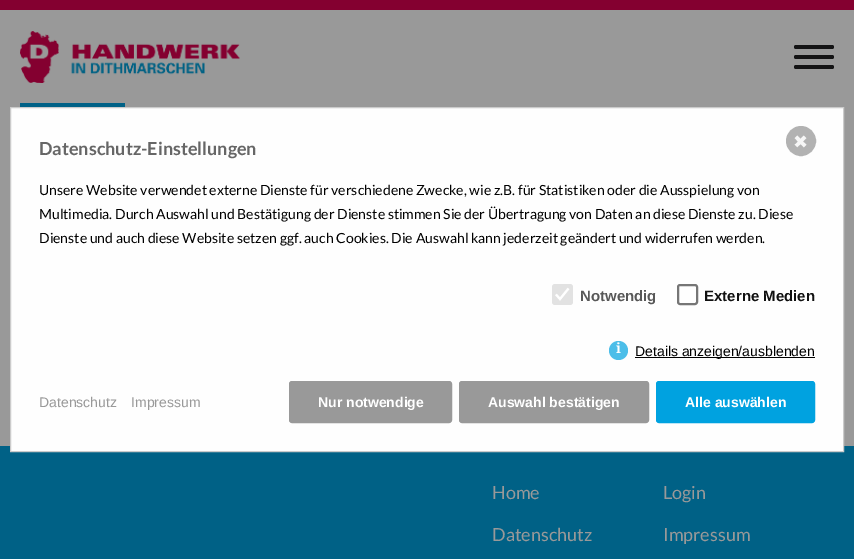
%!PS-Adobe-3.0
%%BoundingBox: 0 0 854 559
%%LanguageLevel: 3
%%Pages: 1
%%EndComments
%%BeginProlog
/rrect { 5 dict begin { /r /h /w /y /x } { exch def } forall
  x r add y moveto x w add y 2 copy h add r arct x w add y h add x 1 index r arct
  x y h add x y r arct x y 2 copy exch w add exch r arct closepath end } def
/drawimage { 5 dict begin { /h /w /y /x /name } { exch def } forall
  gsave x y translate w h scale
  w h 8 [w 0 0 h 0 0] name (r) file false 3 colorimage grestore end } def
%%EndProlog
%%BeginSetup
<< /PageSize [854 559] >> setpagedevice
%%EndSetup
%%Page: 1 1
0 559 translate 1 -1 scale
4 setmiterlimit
0.6 setgray
0 0 854 559 rectfill
0.518 0 0.188 setrgbcolor
0 0 854 10 rectfill
(images/1.raw) 20 31 220 52 drawimage
0.078 0.078 0.082 setrgbcolor
794 55 40 4 2 rrect fill
794 45 40 4 2 rrect fill
794 65 40 4 2 rrect fill
0 0.38 0.525 setrgbcolor
20 103 105 4 rectfill
0 446 854 113 rectfill
0.996 setgray
newpath 10.5 107.5 moveto 843.5 107.5 lineto 843.5 451.5 lineto 10.5 451.5 lineto closepath gsave fill grestore
0.796 setgray
stroke
0.698 setgray
newpath 801 141 14 0 360 arc closepath gsave fill grestore
2 setlinewidth
stroke
0.886 setgray
552 284 21 21 3 rrect fill
1 setgray
2.1 setlinewidth
newpath 556 294.5 moveto 560 299 lineto 568.5 288.5 lineto stroke
0.463 setgray
2 setlinewidth
678 285 19 19 2 rrect stroke
0.298 0.745 0.914 setrgbcolor
newpath 618.5 350.5 9.5 0 360 arc closepath fill
0 setgray
635 357 180 1 rectfill
0.6 setgray
289.5 381.5 162 41 2.5 rrect gsave fill grestore
1 setlinewidth
stroke
459.5 381.5 189 41 2.5 rrect gsave fill grestore
stroke
0 0.635 0.878 setrgbcolor
656.5 381.5 158 41 2.5 rrect gsave fill grestore
stroke
/DejaVuSans-Regular [18 0 0 -18 0 0] selectfont
0.965 setgray
793 148 moveto (✖) show
/Lato-Bold [18 0 0 -18 0 0] selectfont
0.4 setgray
39 155 moveto (Datenschutz-Einstellungen) show
/Lato-Regular [14 0 0 -14 0 0] selectfont
0 setgray
39 195 moveto (Unsere Website verwendet externe Dienste für verschiedene Zwecke, wie z.B. für Statistiken oder die Ausspielung von) show
39 219 moveto (Multimedia. Durch Auswahl und Bestätigung der Dienste stimmen Sie der Übertragung von Daten an diese Dienste zu. Diese) show
39 243 moveto (Dienste und auch diese Website setzen ggf. auch Cookies. Die Auswahl kann jederzeit geändert und widerrufen werden.) show
/LiberationSans-Bold [15 0 0 -15 0 0] selectfont
0.345 setgray
580 301 moveto (Notwendig) show
0.067 setgray
704 301 moveto (Externe Medien) show
/NotoSerif-Bold [14 0 0 -14 0 0] selectfont
1 setgray
616 353 moveto (i) show
/LiberationSans-Regular [14 0 0 -14 0 0] selectfont
0 setgray
635 356 moveto (Details anzeigen/ausblenden) show
0.6 setgray
39 407 moveto (Datenschutz) show
131 407 moveto (Impressum) show
/LiberationSans-Bold [14 0 0 -14 0 0] selectfont
1 setgray
318 407 moveto (Nur notwendige) show
488 407 moveto (Auswahl bestätigen) show
685 407 moveto (Alle auswählen) show
/Lato-Regular [18 0 0 -18 0 0] selectfont
0.6 setgray
492 499 moveto (Home) show
663 499 moveto (Login) show
492 541 moveto (Datenschutz) show
663 541 moveto (Impressum) show
showpage
%%EOF
